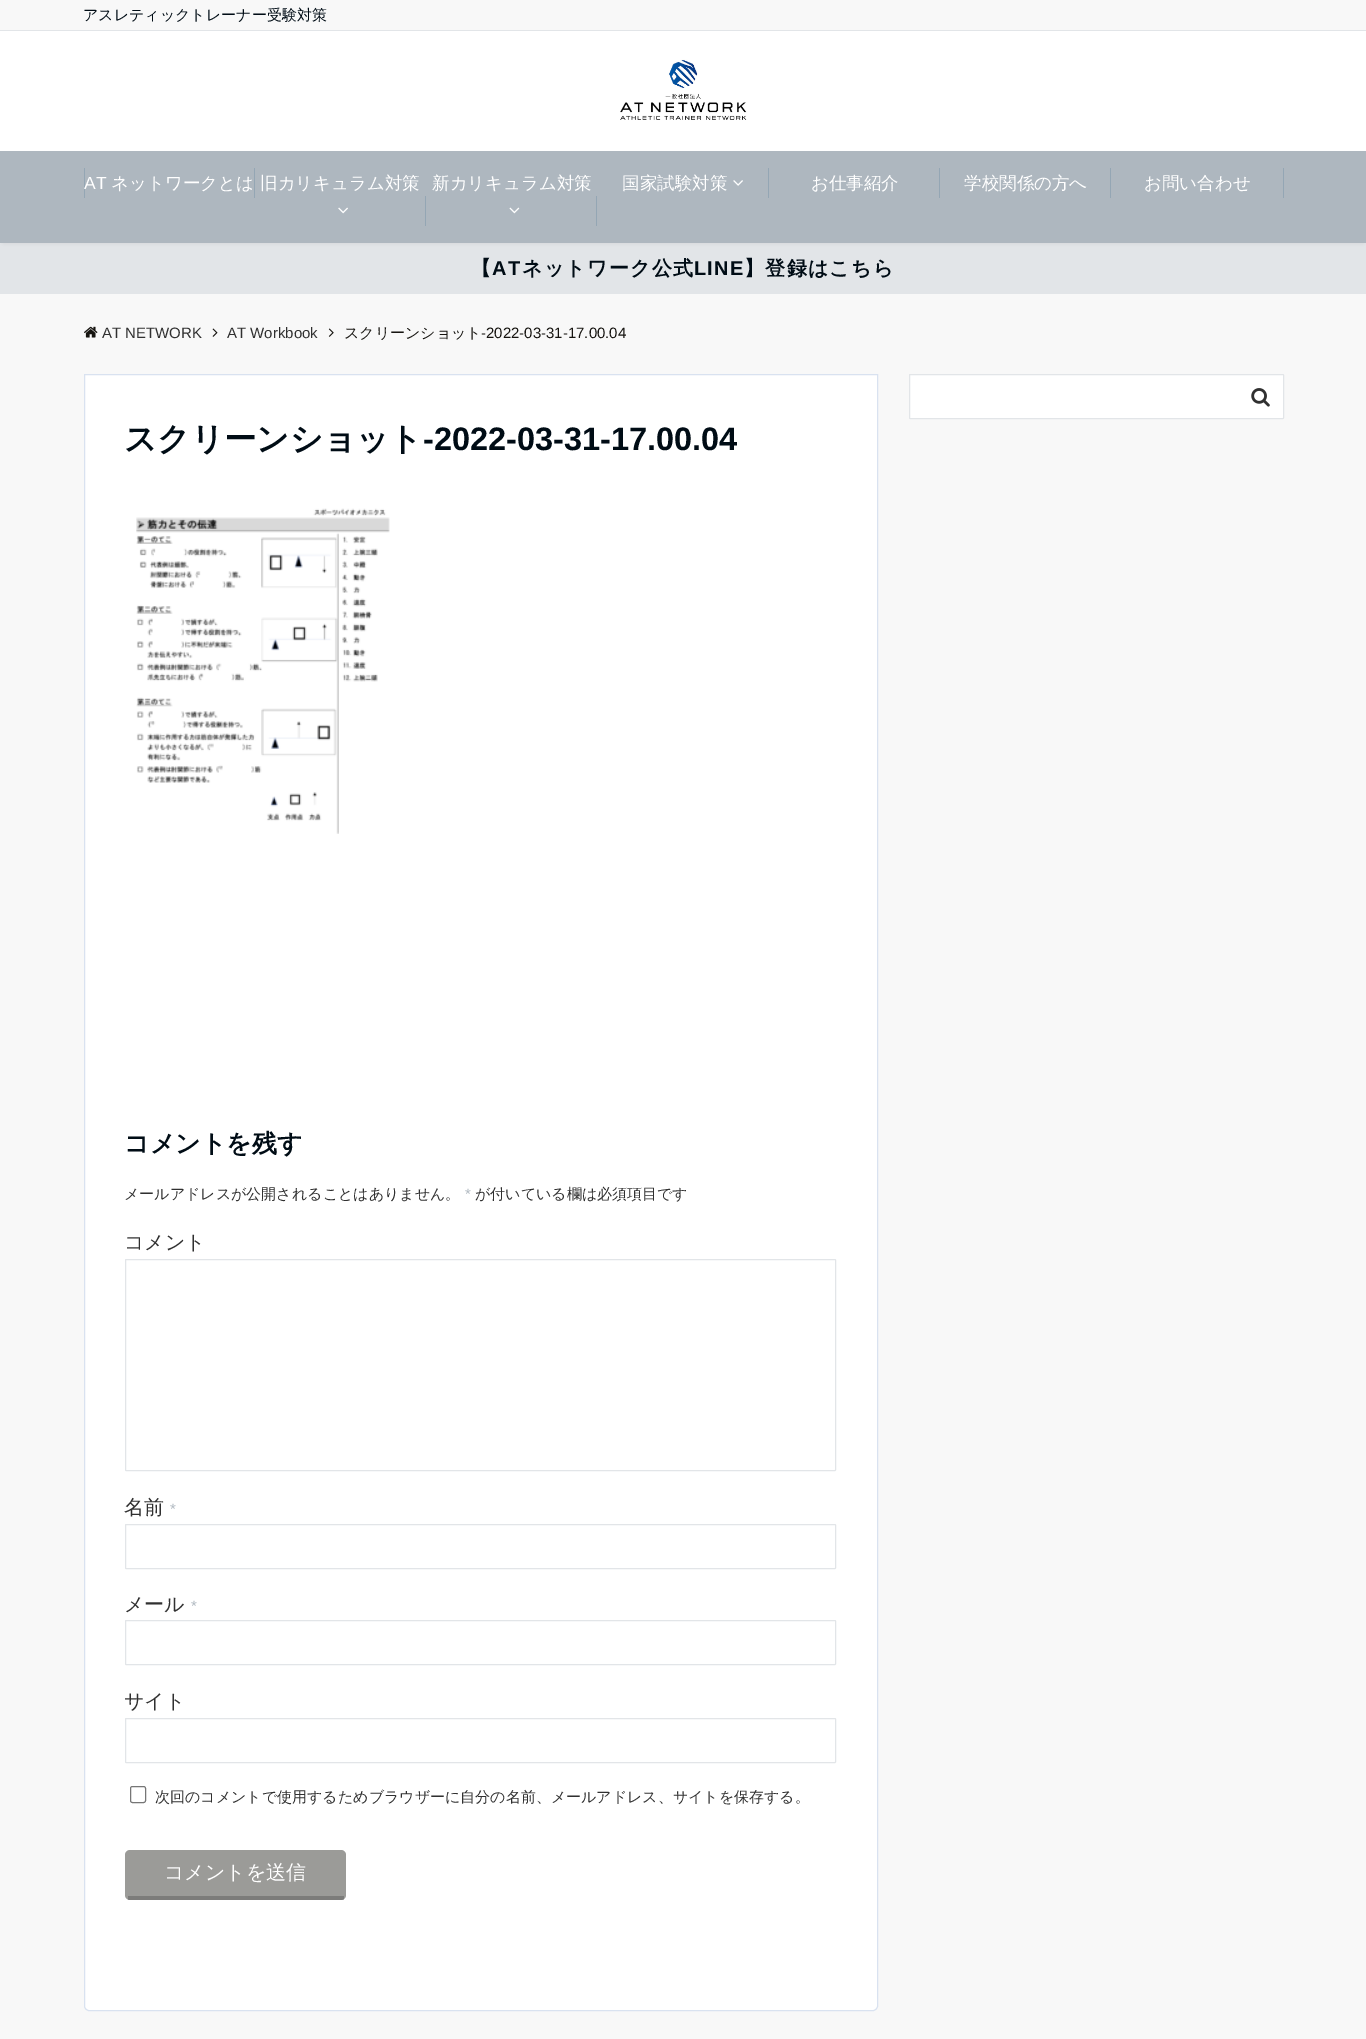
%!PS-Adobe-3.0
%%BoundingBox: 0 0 1366 2039
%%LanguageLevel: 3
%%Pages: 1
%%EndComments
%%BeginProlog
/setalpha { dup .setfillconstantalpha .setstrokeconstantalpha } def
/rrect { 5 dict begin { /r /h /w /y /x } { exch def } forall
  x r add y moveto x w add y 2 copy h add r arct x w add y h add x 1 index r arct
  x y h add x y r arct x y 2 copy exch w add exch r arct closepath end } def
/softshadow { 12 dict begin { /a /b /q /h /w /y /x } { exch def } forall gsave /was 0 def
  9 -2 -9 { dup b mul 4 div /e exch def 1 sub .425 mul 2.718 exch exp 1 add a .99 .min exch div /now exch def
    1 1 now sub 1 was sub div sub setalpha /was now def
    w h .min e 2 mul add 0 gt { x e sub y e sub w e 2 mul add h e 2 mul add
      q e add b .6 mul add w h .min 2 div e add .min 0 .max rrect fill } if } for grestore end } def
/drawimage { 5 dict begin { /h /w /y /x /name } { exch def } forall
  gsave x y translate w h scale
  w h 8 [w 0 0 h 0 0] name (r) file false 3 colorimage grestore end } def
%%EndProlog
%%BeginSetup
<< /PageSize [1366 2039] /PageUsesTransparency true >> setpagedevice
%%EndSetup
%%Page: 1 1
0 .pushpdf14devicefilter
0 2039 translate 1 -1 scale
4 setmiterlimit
0.973 setgray
0 0 1366 2039 rectfill
0.886 0.898 0.91 setrgbcolor
0 30 1366 1 rectfill
1 setgray
0 31 1366 120 rectfill
(images/1.raw) 620 59 127 61 drawimage
0.886 0.898 0.91 setrgbcolor
0 243 1366 51 rectfill
0 setgray
4 158 1359 83 0 2.5 0.2 softshadow
0.682 0.718 0.749 setrgbcolor
0 151 1366 92 rectfill
0.58 0.651 0.706 setrgbcolor
84 168 1 30 rectfill
254 168 1 30 rectfill
(images/2.raw) 338 207 10 7 drawimage
425 196 1 30 rectfill
(images/3.raw) 509 207 11 7 drawimage
596 196 1 30 rectfill
(images/4.raw) 733 180 10 6 drawimage
768 168 1 30 rectfill
939 168 1 30 rectfill
1110 168 1 30 rectfill
1283 168 1 30 rectfill
(images/5.raw) 84 326 14 12 drawimage
(images/6.raw) 212 328 6 9 drawimage
(images/7.raw) 328 328 6 9 drawimage
1 setgray
909.5 374.5 374 44 0.5 rrect gsave fill grestore
0.886 0.898 0.91 setrgbcolor
stroke
(images/8.raw) 1251 388 19 19 drawimage
1 setgray
newpath 84.5 374.5 moveto 877.5 374.5 lineto 877.5 2006 lineto 877.5 2008.5 875.5 2010.5 873 2010.5 curveto 89 2010.5 lineto 86.5 2010.5 84.5 2008.5 84.5 2006 curveto closepath gsave fill grestore
0.851 0.886 0.941 setrgbcolor
stroke
(images/9.raw) 136 508 254 326 drawimage
0.886 0.898 0.91 setrgbcolor
125.5 1259.5 710 211 0.5 rrect stroke
125.5 1524.5 710 44 0.5 rrect stroke
125.5 1620.5 710 44 0.5 rrect stroke
125.5 1718.5 710 44 0.5 rrect stroke
0.463 setgray
130.5 1786.5 15 16 2 rrect stroke
0.608 0.608 0.596 setrgbcolor
125 1850 221 50 5 rrect fill
0.2 setalpha
0 setgray
128 1896 216 4 rectfill
/WenQuanYiZenHei-Medium [15 0 0 -15 0 0] selectfont
1 setalpha
0 0.047 0.082 setrgbcolor
83 20 moveto (アスレティックトレーナー受験対策) show
/LiberationSans-Regular [17.5 0 0 -17.5 0 0] selectfont
1 setgray
84 189 moveto (AT) show
/WenQuanYiZenHei-Medium [17.5 0 0 -17.5 0 0] selectfont
111 189 moveto (ネットワークとは) show
260 189 moveto (旧カリキュラム対策) show
432 189 moveto (新カリキュラム対策) show
622 189 moveto (国家試験対策) show
811 189 moveto (お仕事紹介) show
964 189 moveto (学校関係の方へ) show
1144 189 moveto (お問い合わせ) show
/WenQuanYiZenHei-Bold [20 0 0 -20 0 0] selectfont
0 0.047 0.082 setrgbcolor
471 275 moveto 1.25 0 (【) ashow
/LiberationSans-Bold [20 0 0 -20 0 0] selectfont
492 275 moveto 1.25 0 (AT) ashow
/WenQuanYiZenHei-Bold [20 0 0 -20 0 0] selectfont
522 275 moveto 1.25 0 (ネットワーク公式) ashow
/LiberationSans-Bold [20 0 0 -20 0 0] selectfont
694 275 moveto 1.25 0 (LINE) ashow
/WenQuanYiZenHei-Bold [20 0 0 -20 0 0] selectfont
744 275 moveto 1.25 0 (】登録はこちら) ashow
/LiberationSans-Regular [15 0 0 -15 0 0] selectfont
0.188 setgray
102 338 moveto (AT NETWORK) show
227 338 moveto (AT Workbook) show
/WenQuanYiZenHei-Medium [15 0 0 -15 0 0] selectfont
0.086 0.078 0.063 setrgbcolor
344 338 moveto (スクリーンショット) show
/LiberationSans-Regular [15 0 0 -15 0 0] selectfont
481 338 moveto (-2022-03-31-17.00.04) show
/WenQuanYiZenHei-Bold [32.5 0 0 -32.5 0 0] selectfont
0 0.047 0.082 setrgbcolor
124 450 moveto (スクリーンショット) show
/LiberationSans-Bold [32.5 0 0 -32.5 0 0] selectfont
423 450 moveto (-2022-03-31-17.00.04) show
/WenQuanYiZenHei-Bold [25 0 0 -25 0 0] selectfont
124 1152 moveto (コメントを残す) show
/WenQuanYiZenHei-Medium [15 0 0 -15 0 0] selectfont
0.188 setgray
124 1199 moveto (メールアドレスが公開されることはありません。) show
/LiberationSans-Regular [15 0 0 -15 0 0] selectfont
0.682 0.718 0.749 setrgbcolor
465 1199 moveto (*) show
/WenQuanYiZenHei-Medium [15 0 0 -15 0 0] selectfont
0.188 setgray
475 1199 moveto (が付いている欄は必須項目です) show
/WenQuanYiZenHei-Medium [20 0 0 -20 0 0] selectfont
124 1249 moveto (コメント) show
124 1514 moveto (名前) show
/LiberationSans-Regular [15 0 0 -15 0 0] selectfont
0.682 0.718 0.749 setrgbcolor
170 1514 moveto (*) show
/WenQuanYiZenHei-Medium [20 0 0 -20 0 0] selectfont
0.188 setgray
124 1611 moveto (メール) show
/LiberationSans-Regular [15 0 0 -15 0 0] selectfont
0.682 0.718 0.749 setrgbcolor
191 1611 moveto (*) show
/WenQuanYiZenHei-Medium [20 0 0 -20 0 0] selectfont
0.188 setgray
124 1708 moveto (サイト) show
/WenQuanYiZenHei-Medium [15 0 0 -15 0 0] selectfont
155 1802 moveto (次回のコメントで使用するためブラウザーに自分の名前、メールアドレス、サイトを保存する。) show
/WenQuanYiZenHei-Medium [20 0 0 -20 0 0] selectfont
1 setgray
164 1879 moveto (コメントを送信) show
.poppdf14devicefilter showpage
%%EOF
